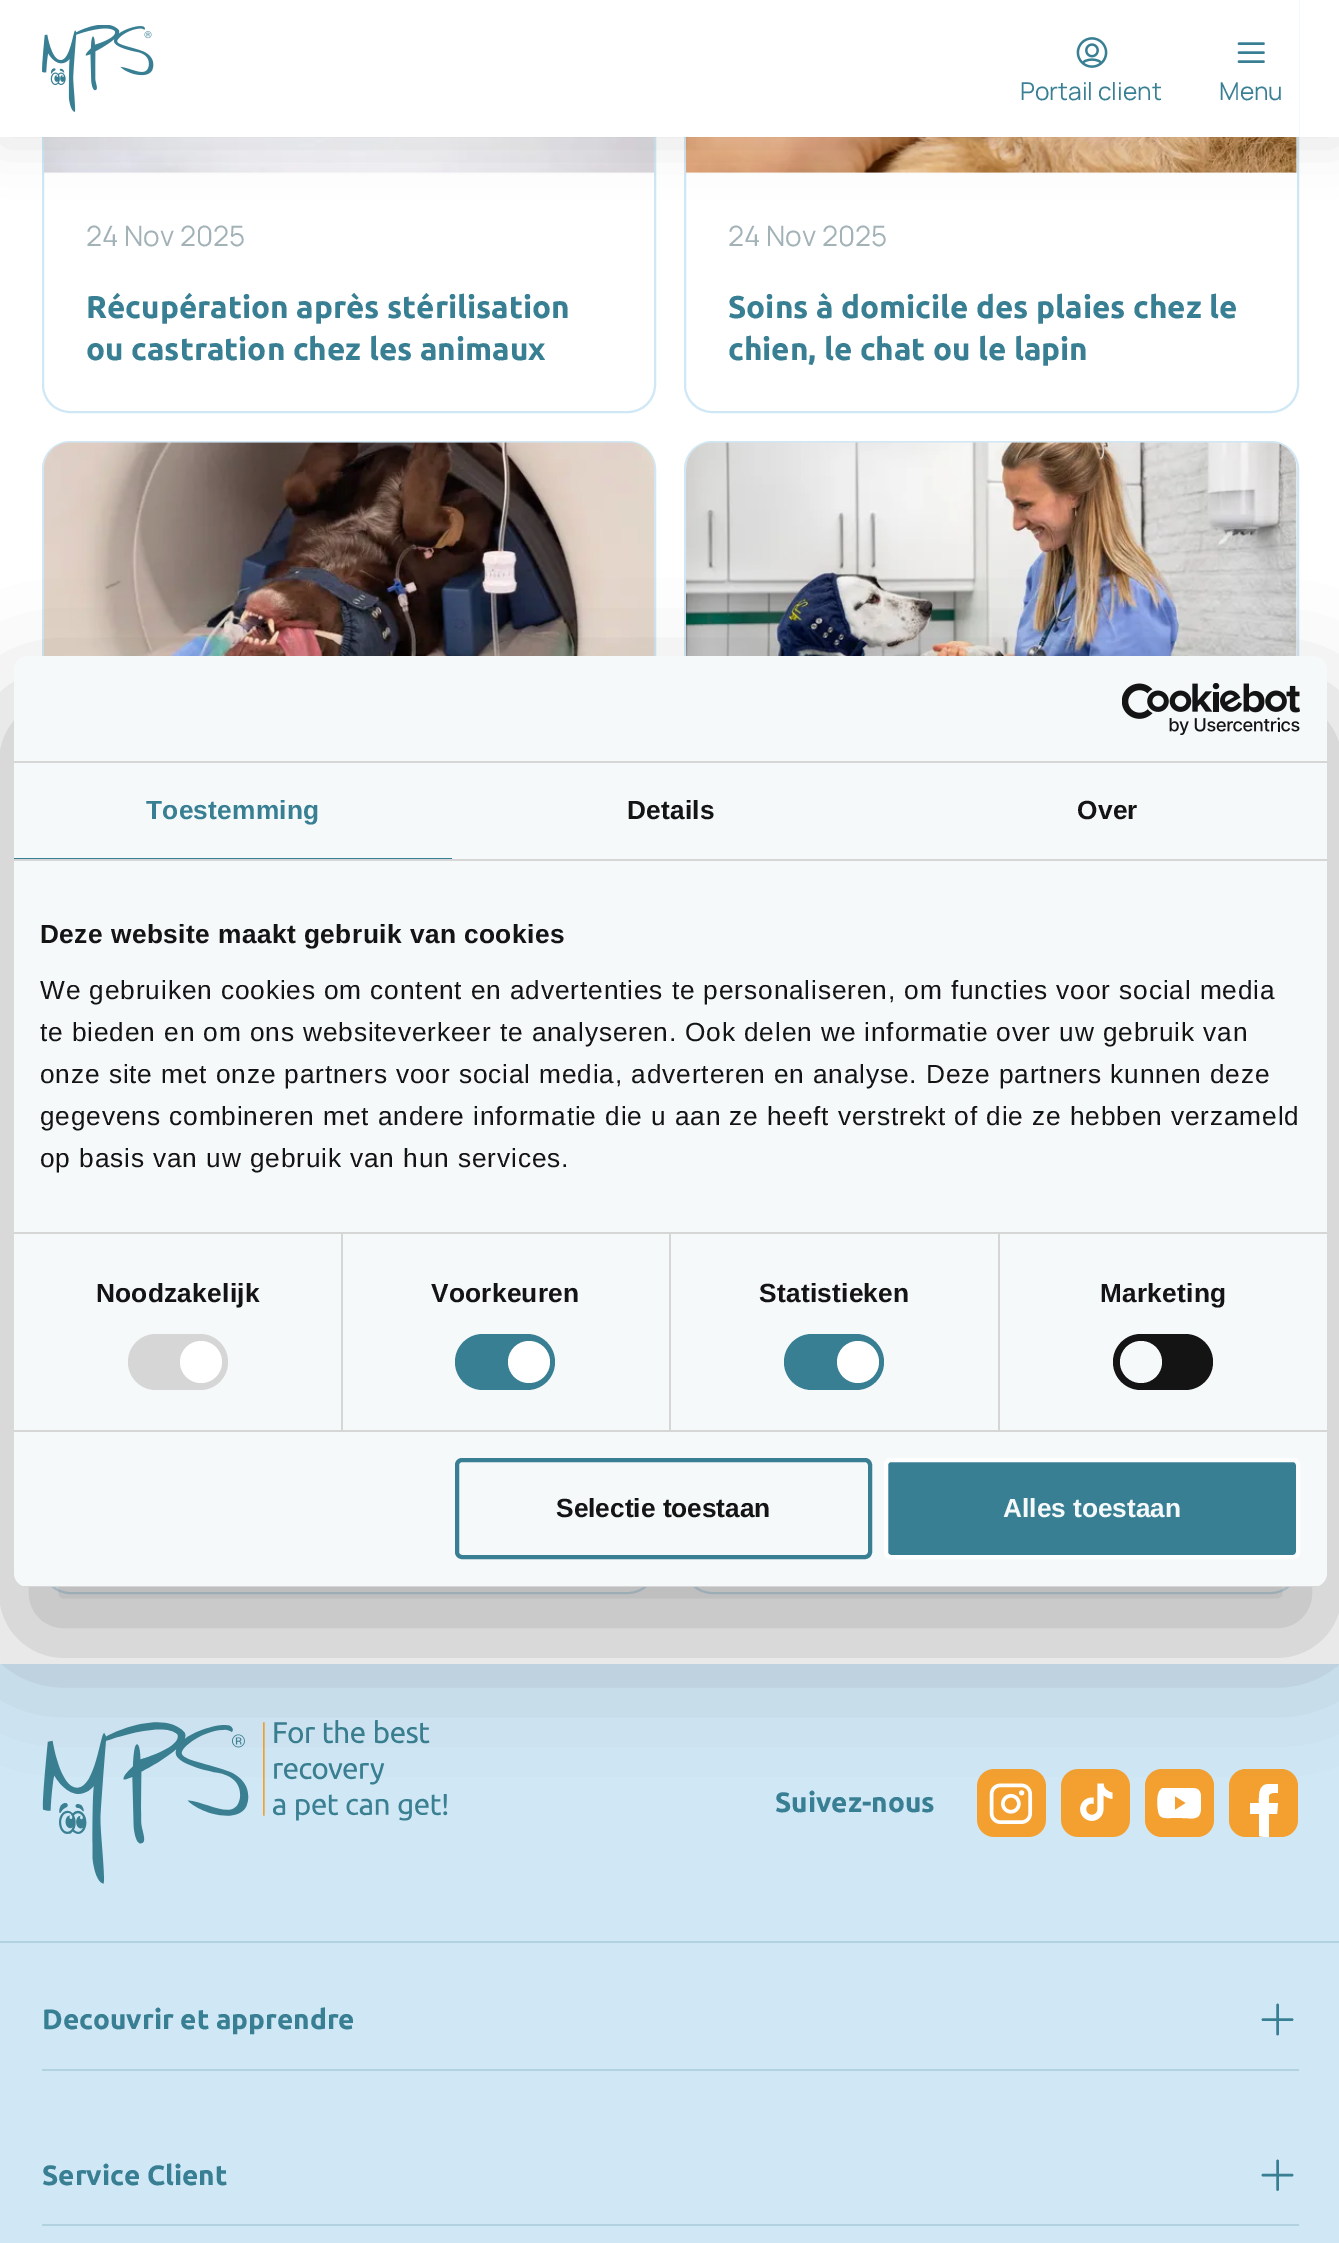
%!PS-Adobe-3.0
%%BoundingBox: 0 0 1339 2243
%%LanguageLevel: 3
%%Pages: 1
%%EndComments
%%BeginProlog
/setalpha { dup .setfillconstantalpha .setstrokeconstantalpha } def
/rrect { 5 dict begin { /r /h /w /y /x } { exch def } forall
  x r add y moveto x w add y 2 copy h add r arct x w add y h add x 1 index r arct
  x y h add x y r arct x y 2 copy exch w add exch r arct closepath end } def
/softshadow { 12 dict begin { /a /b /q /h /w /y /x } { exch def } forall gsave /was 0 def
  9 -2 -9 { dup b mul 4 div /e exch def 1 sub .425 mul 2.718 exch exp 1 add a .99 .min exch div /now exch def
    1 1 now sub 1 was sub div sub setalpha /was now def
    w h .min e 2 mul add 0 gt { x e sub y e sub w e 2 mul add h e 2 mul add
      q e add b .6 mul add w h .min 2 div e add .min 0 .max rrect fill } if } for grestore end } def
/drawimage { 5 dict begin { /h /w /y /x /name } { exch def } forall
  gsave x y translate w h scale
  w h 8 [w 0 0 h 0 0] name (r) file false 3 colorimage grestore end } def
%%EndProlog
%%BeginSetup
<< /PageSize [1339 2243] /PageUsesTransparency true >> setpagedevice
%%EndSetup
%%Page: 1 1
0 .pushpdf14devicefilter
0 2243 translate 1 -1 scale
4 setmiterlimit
1 setgray
0 0 1339 2243 rectfill
0.816 0.906 0.961 setrgbcolor
2 setlinewidth
43 -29 612 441 27 rrect stroke
685 -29 613 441 27 rrect stroke
1 setgray
42 0 1257 137 rectfill
(images/3.raw) 44 137 611 36 drawimage
(images/4.raw) 686 137 611 36 drawimage
gsave
newpath 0 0 moveto 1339 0 lineto 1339 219 lineto 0 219 lineto closepath 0 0 moveto 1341 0 lineto 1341 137 lineto 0 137 lineto closepath eoclip newpath
0 setgray
0 7 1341 137 0 24.5 0.1 softshadow
grestore
(images/1.raw) 42 25 112 87 drawimage
(images/2.raw) 1076 37 32 31 drawimage
0.224 0.498 0.58 setrgbcolor
2.5 setlinewidth
1 setlinecap
1 setlinejoin
newpath 1239 43.5 moveto 1263.5 43.5 lineto 1239 52.5 moveto 1263.5 52.5 lineto 1239 61.5 moveto 1263.5 61.5 lineto stroke
0.816 0.906 0.961 setrgbcolor
2 setlinewidth
0 setlinecap
0 setlinejoin
43 442 612 598 27 rrect stroke
(images/5.raw) 44 442 611 214 drawimage
685 442 613 598 27 rrect stroke
(images/6.raw) 686 442 611 214 drawimage
43 1070 612 523 27 rrect stroke
685 1070 613 523 27 rrect stroke
0 1664 1339 579 rectfill
(images/7.raw) 42 1720 406 164 drawimage
(images/8.raw) 977 1769 69 68 drawimage
(images/9.raw) 1061 1769 69 68 drawimage
0.957 0.627 0.192 setrgbcolor
1145 1769 69 68 17 rrect fill
1 setgray
newpath 1201 1796 moveto 1200 1788 1196 1788 1189 1788 curveto 1163 1788 lineto 1156 1790 1157 1805 1158 1810 curveto 1159 1819 1164 1818 1171 1818 curveto 1182 1818 lineto 1192 1818 1200 1821 1201 1809 curveto closepath 1175 1810 moveto 1175 1796 lineto 1186 1803 lineto closepath fill
0.957 0.627 0.192 setrgbcolor
1229 1769 69 68 17 rrect fill
1 setgray
newpath 1269 1796 moveto 1269 1803 lineto 1278 1803 lineto 1277 1814 lineto 1269 1814 lineto 1269 1837 lineto 1266 1837 1262 1837 1259 1836 curveto 1259 1814 lineto 1250 1814 lineto 1250 1803 lineto 1259 1803 lineto 1259 1796 1258 1784 1269 1784 curveto 1278 1784 lineto 1278 1793 lineto 1276 1793 1269 1792 1269 1796 curveto closepath fill
0.698 0.824 0.886 setrgbcolor
0 1941 1339 2 rectfill
42 2069 1257 2 rectfill
0.224 0.498 0.58 setrgbcolor
2.6 setlinewidth
1 setlinecap
1 setlinejoin
newpath 1263 2019.5 moveto 1292 2019.5 lineto 1277.5 2005 moveto 1277.5 2034 lineto stroke
0.698 0.824 0.886 setrgbcolor
42 2224 1257 2 rectfill
0.224 0.498 0.58 setrgbcolor
newpath 1263 2175 moveto 1292 2175 lineto 1277.5 2161 moveto 1277.5 2189.5 lineto stroke
0 setgray
14 712 1313 931 14 59.5 0.3 softshadow
0.961 0.976 0.98 setrgbcolor
14 656 1313 931 14 rrect fill
0.839 setgray
14 761 1313 2 rectfill
(images/10.raw) 1122 683 178 52 drawimage
14 859 1313 2 rectfill
0.224 0.498 0.58 setrgbcolor
14 858 438 1 rectfill
0.839 setgray
14 1232 1313 2 rectfill
14 1430 1313 2 rectfill
341 1234 2 196 rectfill
128 1334 100 56 28 rrect fill
1 setgray
newpath 201 1362 21 0 360 arc closepath fill
0.839 setgray
669 1234 2 196 rectfill
0.224 0.498 0.58 setrgbcolor
455 1334 100 56 28 rrect fill
1 setgray
newpath 529 1362 21 0 360 arc closepath fill
0.839 setgray
998 1234 2 196 rectfill
0.224 0.498 0.58 setrgbcolor
784 1334 100 56 28 rrect fill
1 setgray
newpath 858 1362 21 0 360 arc closepath fill
0.078 setgray
1113 1334 100 56 28 rrect fill
0.961 0.976 0.98 setrgbcolor
newpath 1141 1362 21 0 360 arc closepath fill
gsave
14 656 1313 931 14 rrect clip newpath
0.839 setgray
23 1586 1295 1 rectfill
grestore
0.224 0.498 0.58 setrgbcolor
4 setlinewidth
0 setlinecap
0 setlinejoin
457 1460 413 97 5 rrect stroke
886 1460 412 97 5 rrect gsave fill grestore
1 setgray
stroke
/Manrope-ExtraLight [24.5 0 0 -24.5 0 0] selectfont
0.224 0.498 0.58 setrgbcolor
1020 100 moveto (Portail client) show
1219 100 moveto (Menu) show
/Manrope-ExtraLight [28 0 0 -28 0 0] selectfont
0.635 0.698 0.718 setrgbcolor
86 246 moveto (24 Nov 2025) show
/Ubuntu-Bold [31.5 0 0 -31.5 0 0] selectfont
0.224 0.498 0.58 setrgbcolor
86 318 moveto (Récupération après stérilisation) show
86 360 moveto (ou castration chez les animaux) show
/Manrope-ExtraLight [28 0 0 -28 0 0] selectfont
0.635 0.698 0.718 setrgbcolor
728 246 moveto (24 Nov 2025) show
/Ubuntu-Bold [31.5 0 0 -31.5 0 0] selectfont
0.224 0.498 0.58 setrgbcolor
728 318 moveto (Soins à domicile des plaies chez le) show
728 360 moveto (chien, le chat ou le lapin) show
/Ubuntu-Bold [28 0 0 -28 0 0] selectfont
775 1812 moveto (Suivez-nous) show
42 2029 moveto (Decouvrir et apprendre) show
42 2185 moveto (Service Client) show
/LiberationSans-Bold [26.25 0 0 -26.25 0 0] selectfont
146 819 moveto 0.25 0 (Toestemming) ashow
0.078 setgray
627 819 moveto 0.25 0 (Details) ashow
1077 819 moveto 0.25 0 (Over) ashow
40 943 moveto 0.45 0 (Deze website maakt gebruik van cookies) ashow
/LiberationSans-Regular [26.25 0 0 -26.25 0 0] selectfont
40 999 moveto 0.88 0 (We gebruiken cookies om content en advertenties te personaliseren, om functies voor social media) ashow
40 1041 moveto 0.88 0 (te bieden en om ons websiteverkeer te analyseren. Ook delen we informatie over uw gebruik van) ashow
40 1083 moveto 0.88 0 (onze site met onze partners voor social media, adverteren en analyse. Deze partners kunnen deze) ashow
40 1125 moveto 0.88 0 (gegevens combineren met andere informatie die u aan ze heeft verstrekt of die ze hebben verzameld) ashow
40 1167 moveto 0.88 0 (op basis van uw gebruik van hun services.) ashow
/LiberationSans-Bold [26.25 0 0 -26.25 0 0] selectfont
96 1302 moveto 0.25 0 (Noodzakelijk) ashow
431 1302 moveto 0.25 0 (Voorkeuren) ashow
759 1302 moveto 0.25 0 (Statistieken) ashow
1100 1302 moveto 0.25 0 (Marketing) ashow
556 1517 moveto (Selectie toestaan) show
0.961 0.976 0.98 setrgbcolor
1003 1517 moveto (Alles toestaan) show
.poppdf14devicefilter showpage
%%EOF
